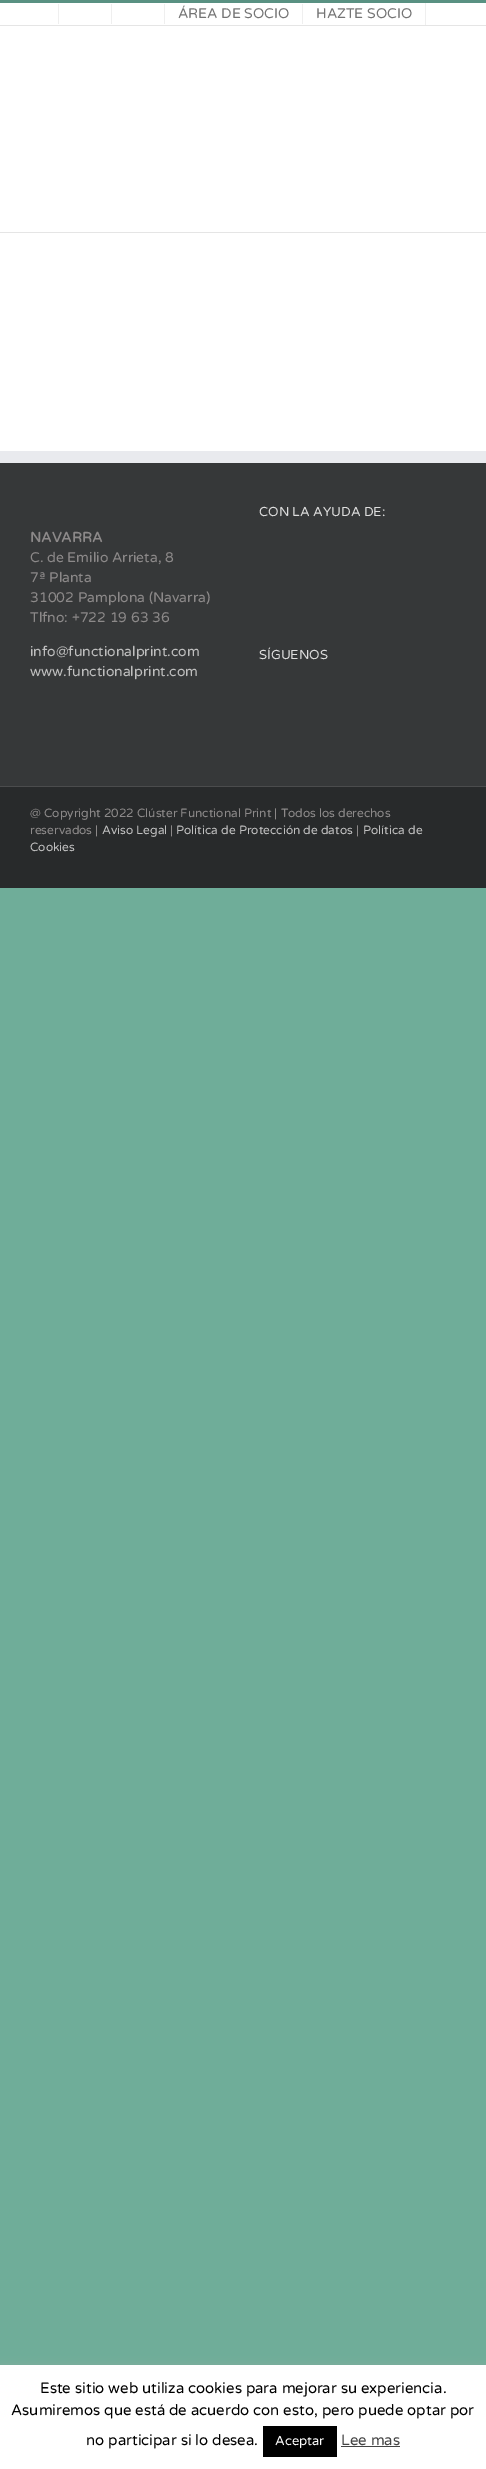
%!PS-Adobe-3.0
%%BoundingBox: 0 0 486 2469
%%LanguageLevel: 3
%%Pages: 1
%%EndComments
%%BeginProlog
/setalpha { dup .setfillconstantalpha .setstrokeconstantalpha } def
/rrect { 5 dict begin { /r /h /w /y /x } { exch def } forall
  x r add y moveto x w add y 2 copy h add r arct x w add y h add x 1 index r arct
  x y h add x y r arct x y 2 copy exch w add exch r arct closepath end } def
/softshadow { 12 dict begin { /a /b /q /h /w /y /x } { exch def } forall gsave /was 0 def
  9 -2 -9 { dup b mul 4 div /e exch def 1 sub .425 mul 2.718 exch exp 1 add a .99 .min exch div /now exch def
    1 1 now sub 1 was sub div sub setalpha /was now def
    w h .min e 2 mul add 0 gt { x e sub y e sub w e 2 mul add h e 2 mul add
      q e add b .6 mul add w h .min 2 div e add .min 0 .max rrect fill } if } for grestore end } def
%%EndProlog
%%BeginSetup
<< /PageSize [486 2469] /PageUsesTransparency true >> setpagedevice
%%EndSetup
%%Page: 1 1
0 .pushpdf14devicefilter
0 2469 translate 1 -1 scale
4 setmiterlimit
0.435 0.678 0.6 setrgbcolor
0 0 486 2469 rectfill
1 setgray
0 3 486 22 rectfill
0.349 0.569 0.51 setrgbcolor
0 0 486 3 rectfill
0.898 setgray
0 25 486 1 rectfill
0.937 setgray
58 4 1 20 rectfill
111 4 1 20 rectfill
164 4 1 20 rectfill
302 4 1 20 rectfill
425 3 1 22 rectfill
1 setgray
0 26 486 206 rectfill
0.898 setgray
0 232 486 1 rectfill
1 setgray
0 233 486 218 rectfill
0.212 0.22 0.224 setrgbcolor
0 463 486 323 rectfill
0.914 0.918 0.933 setrgbcolor
0 451 486 12 rectfill
0.157 0.165 0.169 setrgbcolor
0 787 486 101 rectfill
0.294 0.298 0.302 setrgbcolor
0 786 486 1 rectfill
0.675 0.671 0.671 setrgbcolor
0 2364 486 104 0 5 0.3 softshadow
1 setgray
0 2365 486 104 rectfill
0 setgray
263 2426 74 31 rectfill
0.267 setgray
341 2446 59 1 rectfill
/VarelaRound-Regular [14 0 0 -14 0 0] selectfont
0.455 setgray
178 18 moveto (ÁREA DE SOCIO) show
316 18 moveto (HAZTE SOCIO) show
/VarelaRound-Bold [14 0 0 -14 0 0] selectfont
0.549 0.537 0.537 setrgbcolor
30 542 moveto (NAVARRA) show
/VarelaRound-Regular [14 0 0 -14 0 0] selectfont
30 562 moveto (C. de Emilio Arrieta, 8) show
30 582 moveto (7ª Planta) show
30 602 moveto (31002 Pamplona \(Navarra\)) show
30 622 moveto (Tlfno: +722 19 63 36) show
0.749 setgray
30 656 moveto (info@functionalprint.com) show
30 676 moveto (www.functionalprint.com) show
/VarelaRound-Regular [13 0 0 -13 0 0] selectfont
0.867 setgray
259 516 moveto (CON LA AYUDA DE:) show
259 659 moveto (SÍGUENOS) show
/VarelaRound-Regular [12 0 0 -12 0 0] selectfont
0.549 0.537 0.537 setrgbcolor
30 817 moveto (@ Copyright 2022 Clúster Functional Print | Todos los derechos) show
30 834 moveto (reservados |) show
0.749 setgray
102 834 moveto (Aviso Legal) show
0.549 0.537 0.537 setrgbcolor
170 834 moveto (|) show
0.749 setgray
176 834 moveto (Política de Protección de datos) show
0.549 0.537 0.537 setrgbcolor
356 834 moveto (|) show
0.749 setgray
363 834 moveto (Política de) show
30 851 moveto (Cookies) show
/VarelaRound-Regular [15 0 0 -15 0 0] selectfont
0 setgray
40 2393 moveto (Este sitio web utiliza cookies para mejorar su experiencia.) show
11 2415 moveto (Asumiremos que está de acuerdo con esto, pero puede optar por) show
86 2445 moveto (no participar si lo desea.) show
/VarelaRound-Regular [13 0 0 -13 0 0] selectfont
1 setgray
275 2445 moveto (Aceptar) show
/VarelaRound-Regular [15 0 0 -15 0 0] selectfont
0.267 setgray
341 2445 moveto (Lee mas) show
.poppdf14devicefilter showpage
%%EOF
